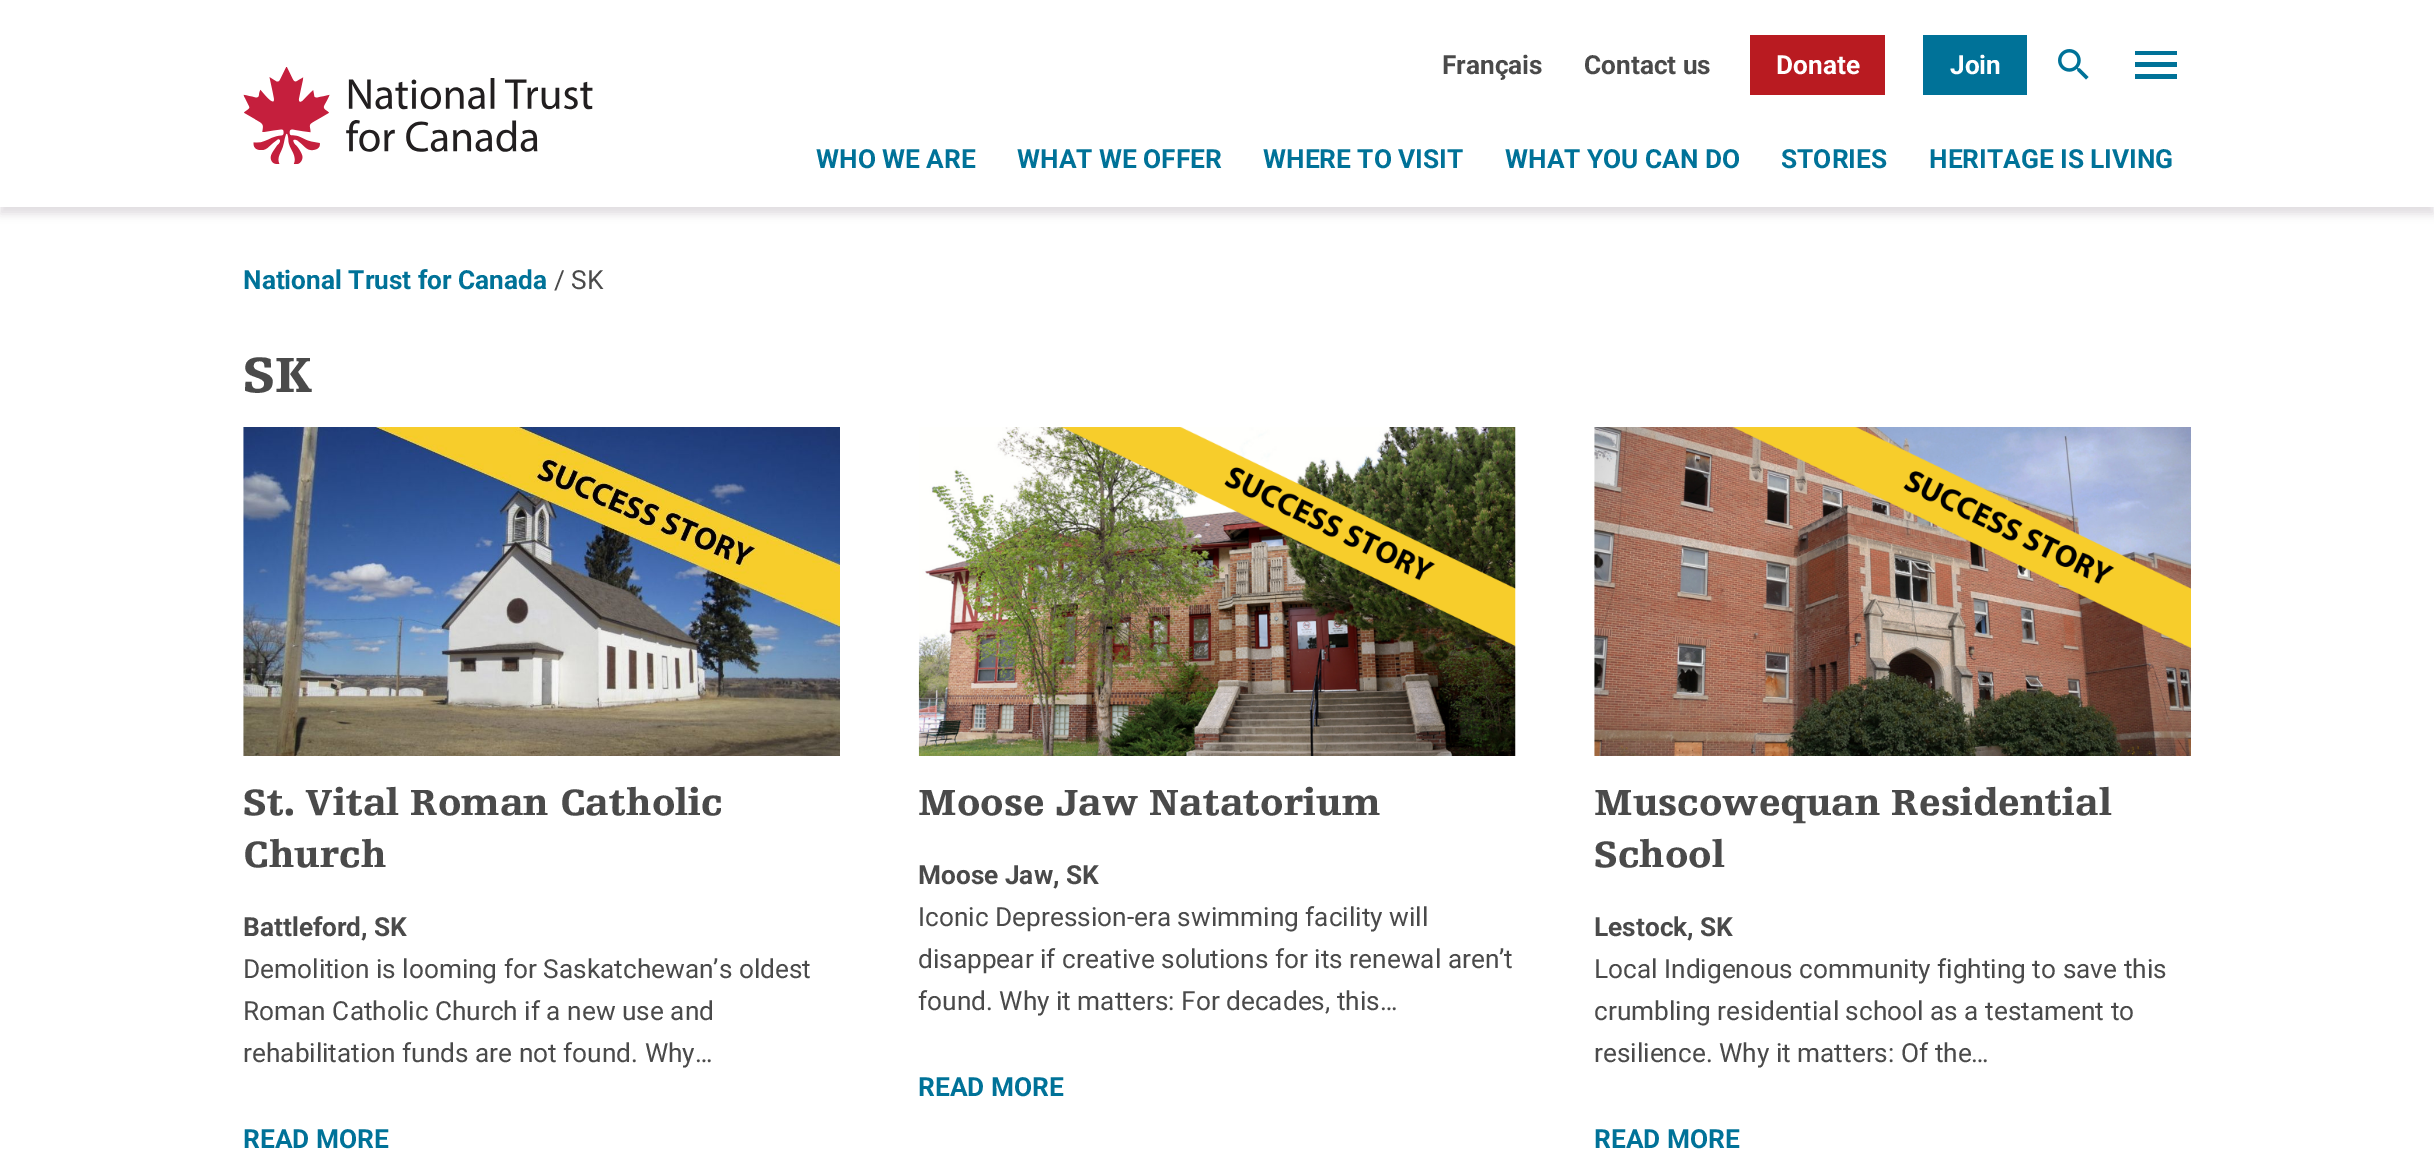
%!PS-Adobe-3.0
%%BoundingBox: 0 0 2434 1151
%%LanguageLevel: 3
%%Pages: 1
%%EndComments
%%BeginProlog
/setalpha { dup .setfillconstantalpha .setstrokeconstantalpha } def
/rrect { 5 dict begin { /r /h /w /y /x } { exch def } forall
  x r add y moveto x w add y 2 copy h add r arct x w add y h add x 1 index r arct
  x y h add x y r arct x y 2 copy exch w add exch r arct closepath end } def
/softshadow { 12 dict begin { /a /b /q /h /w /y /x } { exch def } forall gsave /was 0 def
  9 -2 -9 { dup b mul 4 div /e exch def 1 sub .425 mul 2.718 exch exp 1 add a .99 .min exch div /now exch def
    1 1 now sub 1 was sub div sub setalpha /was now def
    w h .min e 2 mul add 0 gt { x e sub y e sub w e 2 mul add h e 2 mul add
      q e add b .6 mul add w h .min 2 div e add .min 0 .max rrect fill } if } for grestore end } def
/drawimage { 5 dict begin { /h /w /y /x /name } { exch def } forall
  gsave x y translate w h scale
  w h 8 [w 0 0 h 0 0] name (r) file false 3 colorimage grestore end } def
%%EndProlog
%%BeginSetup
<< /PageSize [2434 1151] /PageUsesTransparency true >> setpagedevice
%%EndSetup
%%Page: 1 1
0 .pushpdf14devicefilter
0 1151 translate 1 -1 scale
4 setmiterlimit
1 setgray
0 0 2434 1151 rectfill
gsave
newpath 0 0 moveto 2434 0 lineto 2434 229 lineto 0 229 lineto closepath 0 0 moveto 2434 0 lineto 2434 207 lineto 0 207 lineto closepath eoclip newpath
0.878 0.867 0.878 setrgbcolor
0 7 2434 207 0 4.5 1 softshadow
grestore
(images/1.raw) 243 67 350 98 drawimage
0.725 0.106 0.129 setrgbcolor
1750 35 135 60 rectfill
0 0.447 0.596 setrgbcolor
1923 35 104 60 rectfill
(images/2.raw) 2058 49 31 31 drawimage
newpath 2135 79 moveto 2177 79 lineto 2177 74 lineto 2135 74 lineto closepath 2135 67 moveto 2177 67 lineto 2177 62 lineto 2135 62 lineto closepath 2135 51 moveto 2135 55 lineto 2177 55 lineto 2177 51 lineto closepath eofill
(images/3.raw) 243 427 597 329 drawimage
(images/4.raw) 918 427 598 329 drawimage
(images/5.raw) 1594 427 597 329 drawimage
/Roboto-Bold [26.25 0 0 -26.25 0 0] selectfont
0.29 setgray
1442 74 moveto (Français) show
1584 74 moveto (Contact us) show
1 setgray
1776 74 moveto (Donate) show
1950 74 moveto (Join) show
0 0.447 0.596 setrgbcolor
816 168 moveto (WHO WE ARE) show
1017 168 moveto (WHAT WE OFFER) show
1263 168 moveto (WHERE TO VISIT) show
1505 168 moveto (WHAT YOU CAN DO) show
1781 168 moveto (STORIES) show
1929 168 moveto (HERITAGE IS LIVING) show
243 289 moveto (National Trust for Canada) show
/Roboto-Regular [26.25 0 0 -26.25 0 0] selectfont
0.29 setgray
554 289 moveto (/ SK) show
/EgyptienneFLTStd-Black [52 0 0 -52 0 0] selectfont
243 392 moveto (SK) show
/EgyptienneFLTStd-Black [38.5 0 0 -38.5 0 0] selectfont
243 815 moveto (St. Vital Roman Catholic) show
243 867 moveto (Church) show
/Roboto-Bold [26.25 0 0 -26.25 0 0] selectfont
243 936 moveto (Battleford, SK) show
/Roboto-Regular [26.25 0 0 -26.25 0 0] selectfont
243 978 moveto (Demolition is looming for Saskatchewan’s oldest) show
243 1020 moveto (Roman Catholic Church if a new use and) show
243 1062 moveto (rehabilitation funds are not found. Why…) show
/Roboto-Bold [26.25 0 0 -26.25 0 0] selectfont
0 0.447 0.596 setrgbcolor
243 1148 moveto (READ MORE) show
/EgyptienneFLTStd-Black [38.5 0 0 -38.5 0 0] selectfont
0.29 setgray
918 815 moveto (Moose Jaw Natatorium) show
/Roboto-Bold [26.25 0 0 -26.25 0 0] selectfont
918 884 moveto (Moose Jaw, SK) show
/Roboto-Regular [26.25 0 0 -26.25 0 0] selectfont
918 926 moveto (Iconic Depression-era swimming facility will) show
918 968 moveto (disappear if creative solutions for its renewal aren’t) show
918 1010 moveto (found. Why it matters: For decades, this…) show
/Roboto-Bold [26.25 0 0 -26.25 0 0] selectfont
0 0.447 0.596 setrgbcolor
918 1096 moveto (READ MORE) show
/EgyptienneFLTStd-Black [38.5 0 0 -38.5 0 0] selectfont
0.29 setgray
1594 815 moveto (Muscowequan Residential) show
1594 867 moveto (School) show
/Roboto-Bold [26.25 0 0 -26.25 0 0] selectfont
1594 936 moveto (Lestock, SK) show
/Roboto-Regular [26.25 0 0 -26.25 0 0] selectfont
1594 978 moveto (Local Indigenous community fighting to save this) show
1594 1020 moveto (crumbling residential school as a testament to) show
1594 1062 moveto (resilience. Why it matters: Of the…) show
/Roboto-Bold [26.25 0 0 -26.25 0 0] selectfont
0 0.447 0.596 setrgbcolor
1594 1148 moveto (READ MORE) show
.poppdf14devicefilter showpage
%%EOF
